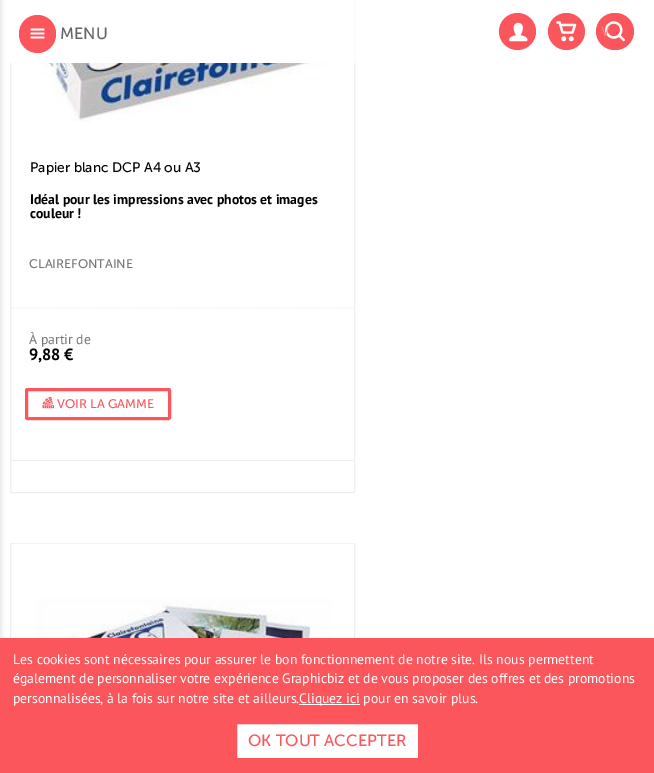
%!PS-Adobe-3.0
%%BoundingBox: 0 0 654 773
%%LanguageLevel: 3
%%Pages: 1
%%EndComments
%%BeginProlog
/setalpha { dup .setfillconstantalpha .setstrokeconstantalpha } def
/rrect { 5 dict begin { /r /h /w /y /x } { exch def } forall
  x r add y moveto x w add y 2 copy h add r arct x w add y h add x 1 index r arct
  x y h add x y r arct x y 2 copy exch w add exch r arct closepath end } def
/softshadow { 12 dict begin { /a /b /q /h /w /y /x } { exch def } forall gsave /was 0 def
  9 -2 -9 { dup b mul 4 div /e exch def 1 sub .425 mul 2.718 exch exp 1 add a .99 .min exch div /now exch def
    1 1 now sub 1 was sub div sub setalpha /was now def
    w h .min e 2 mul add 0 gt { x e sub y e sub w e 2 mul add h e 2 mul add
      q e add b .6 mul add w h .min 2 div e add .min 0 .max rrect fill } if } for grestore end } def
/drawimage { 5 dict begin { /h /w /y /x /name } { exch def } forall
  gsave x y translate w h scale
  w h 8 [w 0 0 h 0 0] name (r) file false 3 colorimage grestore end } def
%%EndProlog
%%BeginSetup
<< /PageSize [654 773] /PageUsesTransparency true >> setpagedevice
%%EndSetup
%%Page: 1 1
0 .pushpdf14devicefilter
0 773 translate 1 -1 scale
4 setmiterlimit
1 setgray
0 0 654 773 rectfill
0.933 setgray
10.5 -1.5 344 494 0.5 rrect stroke
1 setgray
10 0 345 63 rectfill
0.933 setgray
10.5 543.5 344 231 0.5 rrect stroke
0.867 setgray
-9 0 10 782 0 3 1 softshadow
0.98 0.337 0.361 setrgbcolor
19 15 37 38 18.5 rrect fill
(images/1.raw) 30 28 15 11 drawimage
newpath 517.5 31.5 18.5 0 360 arc closepath fill
(images/2.raw) 509 22 19 20 drawimage
newpath 566.5 31.5 18.5 0 360 arc closepath fill
(images/3.raw) 556 21 21 21 drawimage
596 13 38 37 18.5 rrect fill
(images/4.raw) 605 21 20 21 drawimage
(images/5.raw) 13 63 339 59 drawimage
0.933 setgray
1.2 setlinewidth
[1.25 1.25] 0 setdash
newpath 11 308 moveto 354 308 lineto stroke
0.98 0.337 0.361 setrgbcolor
3 setlinewidth
[] 0 setdash
26.5 389.5 143 29 1 rrect stroke
(images/6.raw) 42 396 12 13 drawimage
0.933 setgray
11 460 343 1 rectfill
(images/7.raw) 12 543 341 95 drawimage
0.98 0.337 0.361 setrgbcolor
0 638 654 135 rectfill
1 setgray
299 704 61 1 rectfill
235.5 722.5 184 37 1 rrect gsave fill grestore
0.98 0.337 0.361 setrgbcolor
stroke
/MuseoSans-Regular [16.25 0 0 -16.25 0 0] selectfont
0.412 0.392 0.416 setrgbcolor
60 39 moveto (MENU) show
/MuseoSans-Regular [13.75 0 0 -13.75 0 0] selectfont
0.984 0.51 0.529 setrgbcolor
601 36 moveto (V) show
0 setgray
30 172 moveto (Papier blanc DCP A4 ou A3) show
/PTSans-Bold [13.75 0 0 -13.75 0 0] selectfont
30 204 moveto (Idéal pour les impressions avec photos et images) show
30 218 moveto (couleur !) show
/MuseoSans-Regular [12.5 0 0 -12.5 0 0] selectfont
0.463 setgray
29 268 moveto (CLAIREFONTAINE) show
/PTSans-Regular [13.75 0 0 -13.75 0 0] selectfont
29 344 moveto (À partir de) show
/PTSans-Bold [16.25 0 0 -16.25 0 0] selectfont
0 setgray
29 360 moveto (9,88 €) show
/MuseoSans-Regular [12.5 0 0 -12.5 0 0] selectfont
0.98 0.337 0.361 setrgbcolor
57 408 moveto (VOIR LA GAMME) show
/PTSans-Regular [13.75 0 0 -13.75 0 0] selectfont
1 setgray
13 664 moveto (Les cookies sont nécessaires pour assurer le bon fonctionnement de notre site. Ils nous permettent) show
13 683 moveto (également de personnaliser votre expérience Graphicbiz et de vous proposer des offres et des promotions) show
13 703 moveto (personnalisées, à la fois sur notre site et ailleurs.) show
299 703 moveto (Cliquez ici pour en savoir plus.) show
/MuseoSans-Regular [16.25 0 0 -16.25 0 0] selectfont
0.98 0.337 0.361 setrgbcolor
248 746 moveto (OK TOUT ACCEPTER) show
.poppdf14devicefilter showpage
%%EOF
